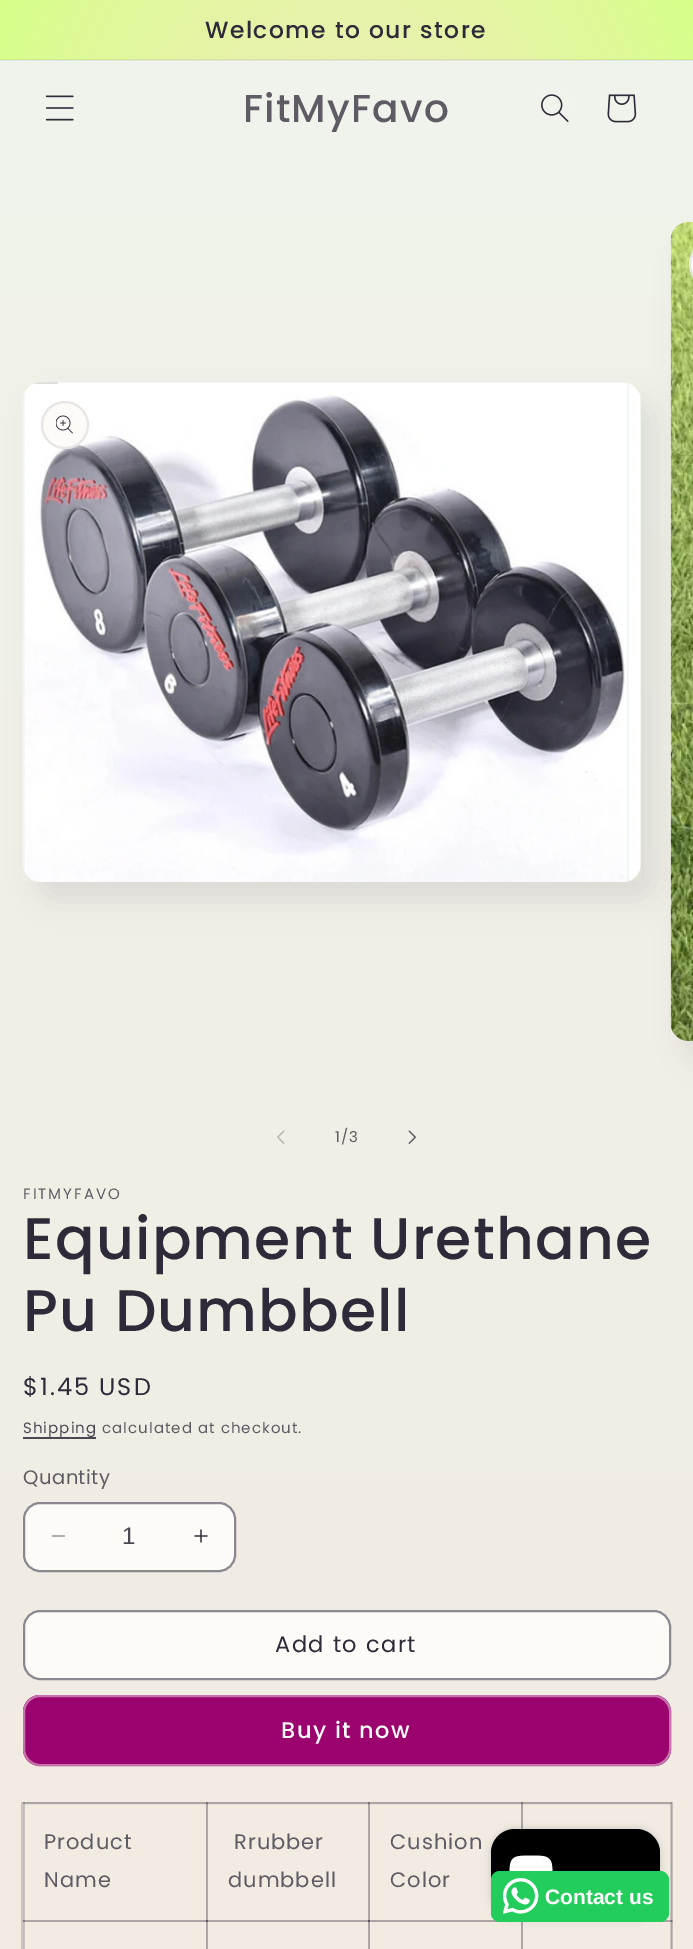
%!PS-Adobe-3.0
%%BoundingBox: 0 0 693 1949
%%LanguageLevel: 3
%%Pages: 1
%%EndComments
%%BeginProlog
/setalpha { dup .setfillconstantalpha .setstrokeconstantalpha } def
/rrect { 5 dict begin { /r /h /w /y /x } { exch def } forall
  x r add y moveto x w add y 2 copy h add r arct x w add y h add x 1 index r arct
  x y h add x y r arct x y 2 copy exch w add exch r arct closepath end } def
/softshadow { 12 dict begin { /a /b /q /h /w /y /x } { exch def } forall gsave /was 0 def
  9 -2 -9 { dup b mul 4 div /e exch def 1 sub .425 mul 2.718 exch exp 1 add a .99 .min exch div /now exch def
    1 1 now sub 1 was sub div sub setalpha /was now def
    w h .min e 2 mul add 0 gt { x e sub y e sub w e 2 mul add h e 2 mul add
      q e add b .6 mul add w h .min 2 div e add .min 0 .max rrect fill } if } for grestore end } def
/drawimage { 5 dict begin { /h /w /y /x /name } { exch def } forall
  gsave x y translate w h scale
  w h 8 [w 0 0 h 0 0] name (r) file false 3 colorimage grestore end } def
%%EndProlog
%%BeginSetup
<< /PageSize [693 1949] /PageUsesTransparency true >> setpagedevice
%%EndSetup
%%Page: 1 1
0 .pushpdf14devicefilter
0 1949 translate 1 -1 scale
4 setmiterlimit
1 setgray
0 0 693 1949 rectfill
gsave newpath 0 61 moveto 693 61 lineto 693 1949 lineto 0 1949 lineto closepath clip newpath
<< /ShadingType 2 /ColorSpace /DeviceRGB /Coords [346 0 347 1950] /Extend [true true] /Function << /FunctionType 2 /Domain [0 1] /C0 [0.941 0.957 0.925] /C1 [0.945 0.922 0.886] /N 1 >> >> shfill grestore
gsave newpath 0 60 moveto 693 60 lineto 693 61 lineto 0 61 lineto closepath clip newpath
<< /ShadingType 2 /ColorSpace /DeviceRGB /Coords [346 0 347 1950] /Extend [true true] /Function << /FunctionType 2 /Domain [0 1] /C0 [0.878 0.894 0.871] /C1 [0.882 0.863 0.831] /N 1 >> >> shfill grestore
gsave newpath 0 0 moveto 693 0 lineto 693 59 lineto 0 59 lineto closepath clip newpath 347 975 translate 490 1379 scale
<< /ShadingType 3 /ColorSpace /DeviceRGB /Coords [0 0 0 0 0 1] /Extend [true true] /Function << /FunctionType 3 /Domain [0 1] /Functions [<< /FunctionType 2 /Domain [0 1] /C0 [1 0.898 0.898] /C1 [1 0.878 0.855] /N 1 >> << /FunctionType 2 /Domain [0 1] /C0 [1 0.878 0.855] /C1 [0.843 1 0.537] /N 1 >>] /Bounds [0.25] /Encode [0 1 0 1] >> >> shfill grestore
gsave newpath 0 59 moveto 693 59 lineto 693 60 lineto 0 60 lineto closepath clip newpath 347 975 translate 490 1379 scale
<< /ShadingType 3 /ColorSpace /DeviceRGB /Coords [0 0 0 0 0 1] /Extend [true true] /Function << /FunctionType 3 /Domain [0 1] /Functions [<< /FunctionType 2 /Domain [0 1] /C0 [0.933 0.839 0.843] /C1 [0.933 0.82 0.804] /N 1 >> << /FunctionType 2 /Domain [0 1] /C0 [0.933 0.82 0.804] /C1 [0.788 0.933 0.514] /N 1 >>] /Bounds [0.25] /Encode [0 1 0 1] >> >> shfill grestore
(images/1.raw) 45 95 29 26 drawimage
(images/2.raw) 541 94 28 28 drawimage
(images/3.raw) 607 94 30 29 drawimage
0.18 0.165 0.224 setrgbcolor
686 240 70 819 18 15 0.1 softshadow
38 401 618 499 18 15 0.1 softshadow
(images/4.raw) 670 222 23 819 drawimage
0.992 0.984 0.969 setrgbcolor
newpath 713 240 moveto 693 240 lineto 693 288 lineto 713 288 lineto 699.5 288 689 277.5 689 264 curveto 689 250.5 699.5 240 713 240 curveto closepath fill
0.1 setalpha
0.18 0.165 0.224 setrgbcolor
2 setlinewidth
690 241 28 46 23 rrect stroke
1 setalpha
gsave 23 383 618 499 18 rrect clip newpath
<< /ShadingType 2 /ColorSpace /DeviceRGB /Coords [346 0 347 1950] /Extend [true true] /Function << /FunctionType 2 /Domain [0 1] /C0 [0.941 0.957 0.925] /C1 [0.945 0.922 0.886] /N 1 >> >> shfill grestore
(images/5.raw) 22 382 619 500 drawimage
0.992 0.984 0.969 setrgbcolor
newpath 65 425 24 0 360 arc closepath fill
0.1 setalpha
0.18 0.165 0.224 setrgbcolor
newpath 65 425 23 0 360 arc closepath stroke
1 setalpha
(images/6.raw) 56 415 17 19 drawimage
(images/7.raw) 277 1130 8 14 drawimage
(images/8.raw) 408 1130 8 14 drawimage
0.294 0.278 0.325 setrgbcolor
23 1437 73 2 rectfill
0.992 0.984 0.969 setrgbcolor
23 1502 213 70 17 rrect fill
(images/9.raw) 51 1535 15 2 drawimage
(images/10.raw) 194 1529 14 14 drawimage
0.55 setalpha
0.18 0.165 0.224 setrgbcolor
24 1503 211 68 16 rrect stroke
1 setalpha
0.992 0.984 0.969 setrgbcolor
23 1610 648 70 17 rrect fill
24 1611 646 68 16 rrect stroke
0.55 setalpha
0.18 0.165 0.224 setrgbcolor
24 1611 646 68 16 rrect stroke
1 setalpha
0.608 0.016 0.435 setrgbcolor
23 1695 648 71 17 rrect fill
24 1696 646 69 16 rrect stroke
0.45 setalpha
0.992 0.984 0.969 setrgbcolor
24 1696 646 69 16 rrect stroke
1 setalpha
0.792 0.773 0.757 setrgbcolor
22 1803 649 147 rectstroke
0.671 0.651 0.651 setrgbcolor
521 1802 151 2 rectfill
0.2 setalpha
0.18 0.165 0.224 setrgbcolor
521 1802 2 27 rectfill
368 1802 154 2 rectfill
368 1920 132 2 rectfill
368 1920 2 29 rectfill
206 1920 163 2 rectfill
368 1920 2 29 rectfill
368 1920 132 2 rectfill
368 1802 2 120 rectfill
206 1802 163 2 rectfill
368 1802 2 120 rectfill
206 1920 2 29 rectfill
23 1920 184 2 rectfill
206 1920 2 29 rectfill
206 1920 163 2 rectfill
206 1802 2 120 rectfill
23 1802 184 2 rectfill
206 1802 2 120 rectfill
23 1920 2 29 rectfill
23 1920 184 2 rectfill
23 1802 2 120 rectfill
521 1802 2 27 rectfill
660 1920 12 2 rectfill
671 1920 2 29 rectfill
671 1802 2 120 rectfill
660 1920 12 2 rectfill
521 1920 2 29 rectfill
521 1920 2 29 rectfill
1 setalpha
0 setgray
491 1829 169 90 24 4 0.15 softshadow
491 1829 169 90 24 rrect fill
(images/11.raw) 509 1855 44 16 drawimage
0.133 0.804 0.357 setrgbcolor
491 1871 178 51 9 rrect fill
(images/12.raw) 503 1878 36 36 drawimage
/Poppins-Medium [23.4 0 0 -23.4 0 0] selectfont
0.18 0.165 0.224 setrgbcolor
205 38 moveto 1.5 0 (Welcome to our store) ashow
/Poppins-Medium [39 0 0 -39 0 0] selectfont
0.373 0.357 0.392 setrgbcolor
243 122 moveto 1.2 0 (FitMyFavo) ashow
/Poppins-Regular [15 0 0 -15 0 0] selectfont
335 1142 moveto 1.05 0 (1/3) ashow
23 1199 moveto 2 0 (FITMYFAVO) ashow
/Poppins-Medium [58.5 0 0 -58.5 0 0] selectfont
0.18 0.165 0.224 setrgbcolor
23 1259 moveto 1.2 0 (Equipment Urethane) ashow
23 1331 moveto 1.2 0 (Pu Dumbbell) ashow
/Poppins-Regular [24 0 0 -24 0 0] selectfont
23 1395 moveto 2 0 ($1.45 USD) ashow
/Poppins-Regular [15 0 0 -15 0 0] selectfont
0.294 0.278 0.325 setrgbcolor
23 1433 moveto 1.05 0 (Shipping) ashow
0.373 0.357 0.392 setrgbcolor
102 1433 moveto 1.05 0 (calculated at checkout.) ashow
/Poppins-Regular [19.5 0 0 -19.5 0 0] selectfont
23 1484 moveto 0.5 0 (Quantity) ashow
/LiberationSans-Regular [24 0 0 -24 0 0] selectfont
0.294 0.278 0.325 setrgbcolor
122 1544 moveto (1) show
/Poppins-Regular [22.5 0 0 -22.5 0 0] selectfont
0.18 0.165 0.224 setrgbcolor
275 1652 moveto 1.5 0 (Add to cart) ashow
/Poppins-Medium [22.5 0 0 -22.5 0 0] selectfont
0.992 0.984 0.969 setrgbcolor
281 1738 moveto 1.5 0 (Buy it now) ashow
/Poppins-Regular [21 0 0 -21 0 0] selectfont
0.373 0.357 0.392 setrgbcolor
44 1849 moveto 1 0 (Product) ashow
44 1887 moveto 1 0 (Name) ashow
234 1849 moveto 1 0 (Rrubber) ashow
228 1887 moveto 1 0 (dumbbell) ashow
390 1849 moveto 1 0 (Cushion) ashow
390 1887 moveto 1 0 (Color) ashow
/LiberationSans-Bold [21 0 0 -21 0 0] selectfont
1 setgray
545 1904 moveto (Contact us) show
.poppdf14devicefilter showpage
%%EOF
